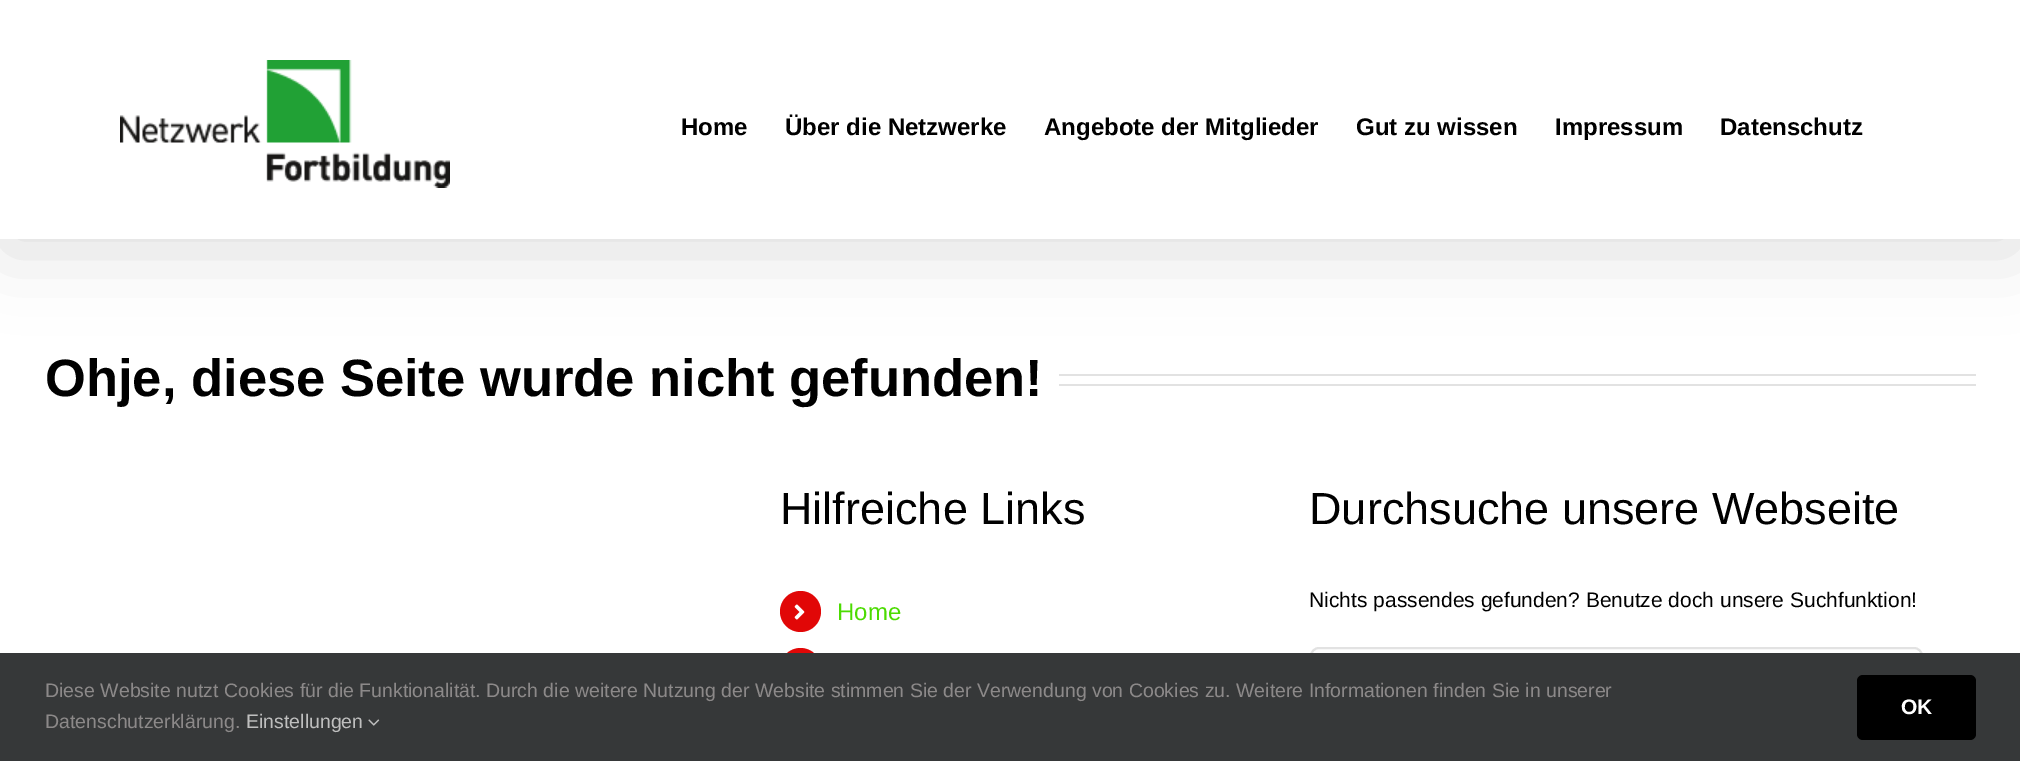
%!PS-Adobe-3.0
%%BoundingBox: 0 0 2020 761
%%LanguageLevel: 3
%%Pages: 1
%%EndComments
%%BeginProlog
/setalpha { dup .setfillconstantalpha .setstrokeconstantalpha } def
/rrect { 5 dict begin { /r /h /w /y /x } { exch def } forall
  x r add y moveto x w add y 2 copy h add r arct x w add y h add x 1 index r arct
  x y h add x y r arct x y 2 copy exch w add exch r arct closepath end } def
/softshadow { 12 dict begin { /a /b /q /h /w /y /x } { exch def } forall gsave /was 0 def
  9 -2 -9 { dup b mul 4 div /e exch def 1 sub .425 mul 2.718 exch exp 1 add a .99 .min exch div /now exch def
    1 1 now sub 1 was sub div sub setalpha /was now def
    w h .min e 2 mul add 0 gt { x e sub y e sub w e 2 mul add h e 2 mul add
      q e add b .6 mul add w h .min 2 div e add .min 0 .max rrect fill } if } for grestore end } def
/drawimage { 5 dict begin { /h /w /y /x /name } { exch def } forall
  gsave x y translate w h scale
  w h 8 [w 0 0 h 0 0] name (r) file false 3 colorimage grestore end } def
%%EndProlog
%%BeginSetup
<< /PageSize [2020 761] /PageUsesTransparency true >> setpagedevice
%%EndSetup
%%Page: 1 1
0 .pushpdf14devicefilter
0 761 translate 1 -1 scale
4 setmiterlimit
1 setgray
0 0 2020 761 rectfill
0 setgray
3 18 2015 233 0 37.5 0.14 softshadow
1 setgray
0 0 2020 239 rectfill
(images/1.raw) 120 60 330 128 drawimage
0.886 setgray
1059 374 917 2 rectfill
1059 384 917 2 rectfill
0.882 0.027 0.027 setrgbcolor
newpath 800.5 611.5 20.5 0 360 arc closepath fill
(images/2.raw) 794 604 11 16 drawimage
780 648 41 42 20.5 rrect fill
0.886 setgray
2 setlinewidth
1311 648 611 73 8 rrect stroke
0.212 0.22 0.224 setrgbcolor
0 653 2020 108 rectfill
(images/3.raw) 368 719 12 7 drawimage
0 setgray
1857 675 119 65 6 rrect fill
/LiberationSans-Bold [24 0 0 -24 0 0] selectfont
681 135 moveto (Home) show
785 135 moveto (Über die Netzwerke) show
1044 135 moveto (Angebote der Mitglieder) show
1356 135 moveto (Gut zu wissen) show
1555 135 moveto (Impressum) show
1720 135 moveto (Datenschutz) show
/LiberationSans-Bold [52.5 0 0 -52.5 0 0] selectfont
45 396 moveto (Ohje, diese Seite wurde nicht gefunden!) show
/LiberationSans-Regular [45 0 0 -45 0 0] selectfont
780 524 moveto (Hilfreiche Links) show
/LiberationSans-Regular [24 0 0 -24 0 0] selectfont
0.298 0.859 0.008 setrgbcolor
837 620 moveto (Home) show
/LiberationSans-Regular [45 0 0 -45 0 0] selectfont
0 setgray
1309 524 moveto (Durchsuche unsere Webseite) show
/LiberationSans-Regular [21 0 0 -21 0 0] selectfont
1309 607 moveto (Nichts passendes gefunden? Benutze doch unsere Suchfunktion!) show
/LiberationSans-Regular [19.5 0 0 -19.5 0 0] selectfont
0.549 0.537 0.537 setrgbcolor
45 697 moveto (Diese Website nutzt Cookies für die Funktionalität. Durch die weitere Nutzung der Website stimmen Sie der Verwendung von Cookies zu. Weitere Informationen finden Sie in unserer) show
45 728 moveto (Datenschutzerklärung.) show
0.749 setgray
246 728 moveto (Einstellungen) show
/LiberationSans-Bold [21 0 0 -21 0 0] selectfont
1 setgray
1901 714 moveto (OK) show
.poppdf14devicefilter showpage
%%EOF
